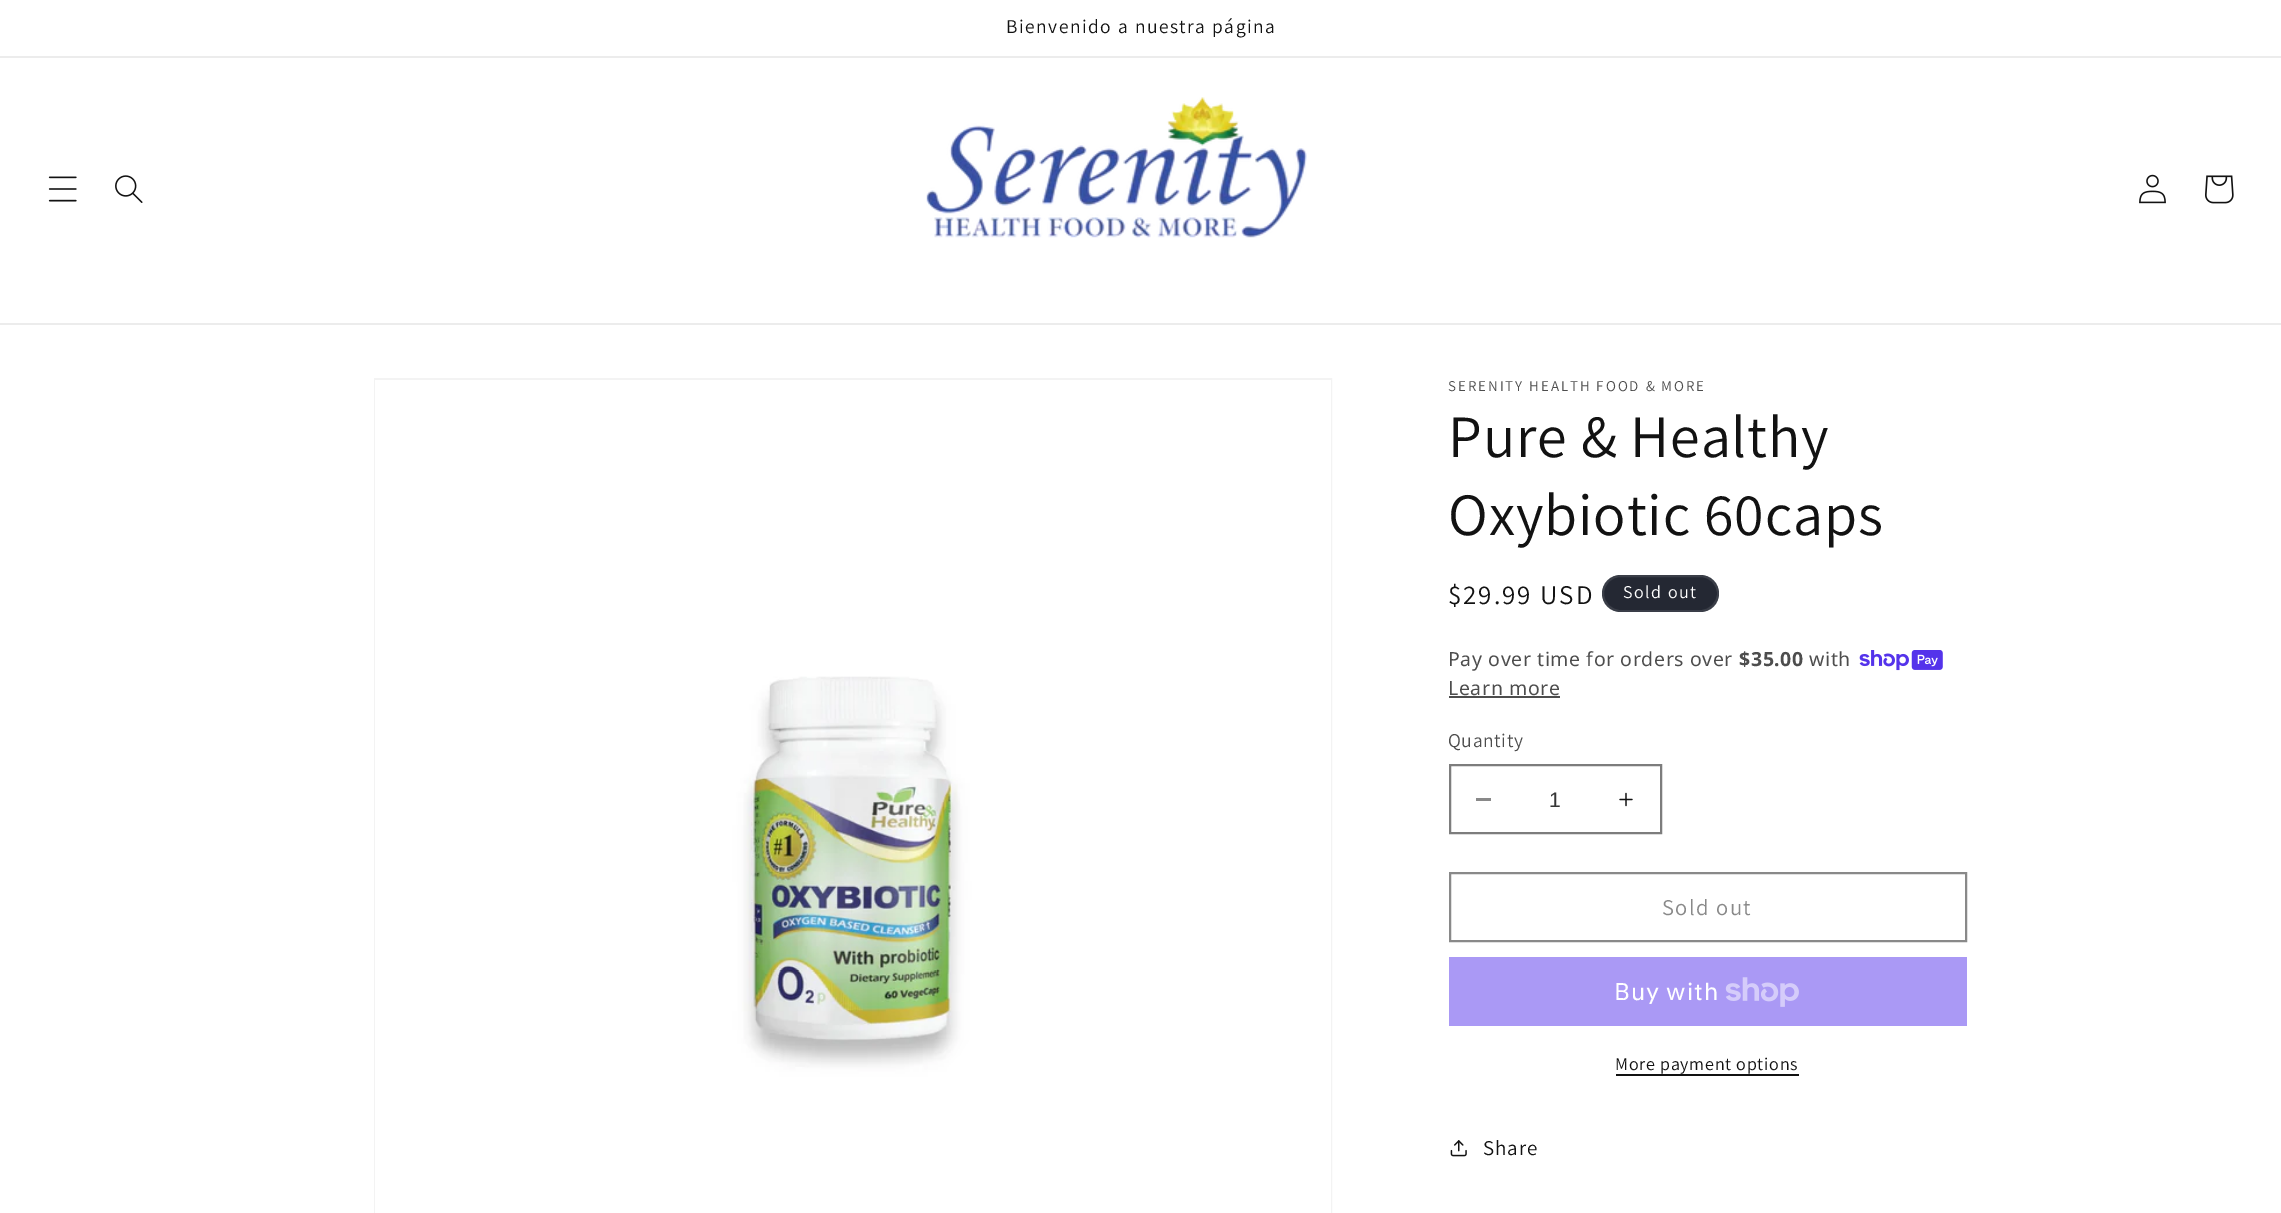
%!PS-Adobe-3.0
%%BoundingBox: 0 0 2281 1213
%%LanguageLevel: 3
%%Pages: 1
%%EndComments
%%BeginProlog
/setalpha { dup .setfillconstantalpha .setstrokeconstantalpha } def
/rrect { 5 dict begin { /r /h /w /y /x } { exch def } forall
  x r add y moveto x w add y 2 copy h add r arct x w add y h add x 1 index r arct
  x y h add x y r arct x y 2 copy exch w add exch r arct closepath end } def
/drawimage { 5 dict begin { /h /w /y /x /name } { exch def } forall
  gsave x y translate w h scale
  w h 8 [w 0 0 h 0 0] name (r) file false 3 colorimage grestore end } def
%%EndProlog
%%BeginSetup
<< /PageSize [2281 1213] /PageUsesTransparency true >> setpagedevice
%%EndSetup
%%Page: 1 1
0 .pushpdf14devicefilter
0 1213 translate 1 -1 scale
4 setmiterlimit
1 setgray
0 0 2281 1213 rectfill
0.925 setgray
0 56 2281 2 rectfill
0 323 2281 2 rectfill
(images/1.raw) 48 176 29 26 drawimage
(images/2.raw) 115 175 28 28 drawimage
(images/3.raw) 926 97 381 141 drawimage
(images/4.raw) 2139 174 27 30 drawimage
(images/5.raw) 2205 175 29 29 drawimage
0.953 setgray
2 setlinewidth
375 379 956 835 rectstroke
(images/6.raw) 375 380 956 833 drawimage
0.141 0.157 0.2 setrgbcolor
1602 575 117 37 18.5 rrect fill
0.1 setalpha
1 setgray
1603 576 115 35 17.5 rrect stroke
1 setalpha
(images/7.raw) 1859 650 84 21 drawimage
0.302 setgray
1449 696 111 2 rectfill
0.537 setgray
1476 798 15 3 rectfill
(images/8.raw) 1619 792 14 15 drawimage
0.49 setgray
1450 765 211 68 rectstroke
0.537 setgray
1450 873 516 68 rectstroke
0.667 0.6 0.961 setrgbcolor
1449 957 518 69 rectfill
(images/9.raw) 1725 977 74 30 drawimage
0.071 setgray
1616 1074 183 2 rectfill
(images/10.raw) 1450 1140 17 17 drawimage
/Assistant-Regular [19.5 0 0 -19.5 0 0] selectfont
1006 33 moveto 1.5 0 (Bienvenido a nuestra página) ashow
/Assistant-Regular [15 0 0 -15 0 0] selectfont
0.302 setgray
1448 391 moveto 1.95 0 (SERENITY HEALTH FOOD & MORE) ashow
/Assistant-Regular [60 0 0 -60 0 0] selectfont
0.071 setgray
1448 457 moveto 0.9 0 (Pure & Healthy) ashow
1448 535 moveto 0.9 0 (Oxybiotic 60caps) ashow
/Assistant-Regular [27 0 0 -27 0 0] selectfont
1448 604 moveto 1.95 0 ($29.99 USD) ashow
/Assistant-Regular [18 0 0 -18 0 0] selectfont
1 setgray
1623 598 moveto 1.5 0 (Sold out) ashow
/NotoSans-Regular [19.5 0 0 -19.5 0 0] selectfont
0.302 setgray
1448 666 moveto 0.6 0 (Pay over time for orders over) ashow
/NotoSans-Bold [19.5 0 0 -19.5 0 0] selectfont
1739 666 moveto 0.6 0 ($35.00) ashow
/NotoSans-Regular [19.5 0 0 -19.5 0 0] selectfont
1809 666 moveto 0.6 0 (with) ashow
1448 695 moveto 0.6 0 (Learn more) ashow
/Assistant-Regular [19.5 0 0 -19.5 0 0] selectfont
1448 747 moveto 0.6 0 (Quantity) ashow
/LiberationSans-Regular [21 0 0 -21 0 0] selectfont
0.212 setgray
1549 807 moveto (1) show
/Assistant-Regular [22.5 0 0 -22.5 0 0] selectfont
0.537 setgray
1662 915 moveto 1.5 0 (Sold out) ashow
/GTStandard-Regular [24 0 0 -24 0 0] selectfont
1 setgray
1614 1000 moveto 0.9 0 (Buy with) ashow
/Assistant-Regular [18 0 0 -18 0 0] selectfont
0.071 setgray
1615 1070 moveto 0.75 0 (More payment options) ashow
/Assistant-Regular [21 0 0 -21 0 0] selectfont
1483 1155 moveto 0.9 0 (Share) ashow
.poppdf14devicefilter showpage
%%EOF
